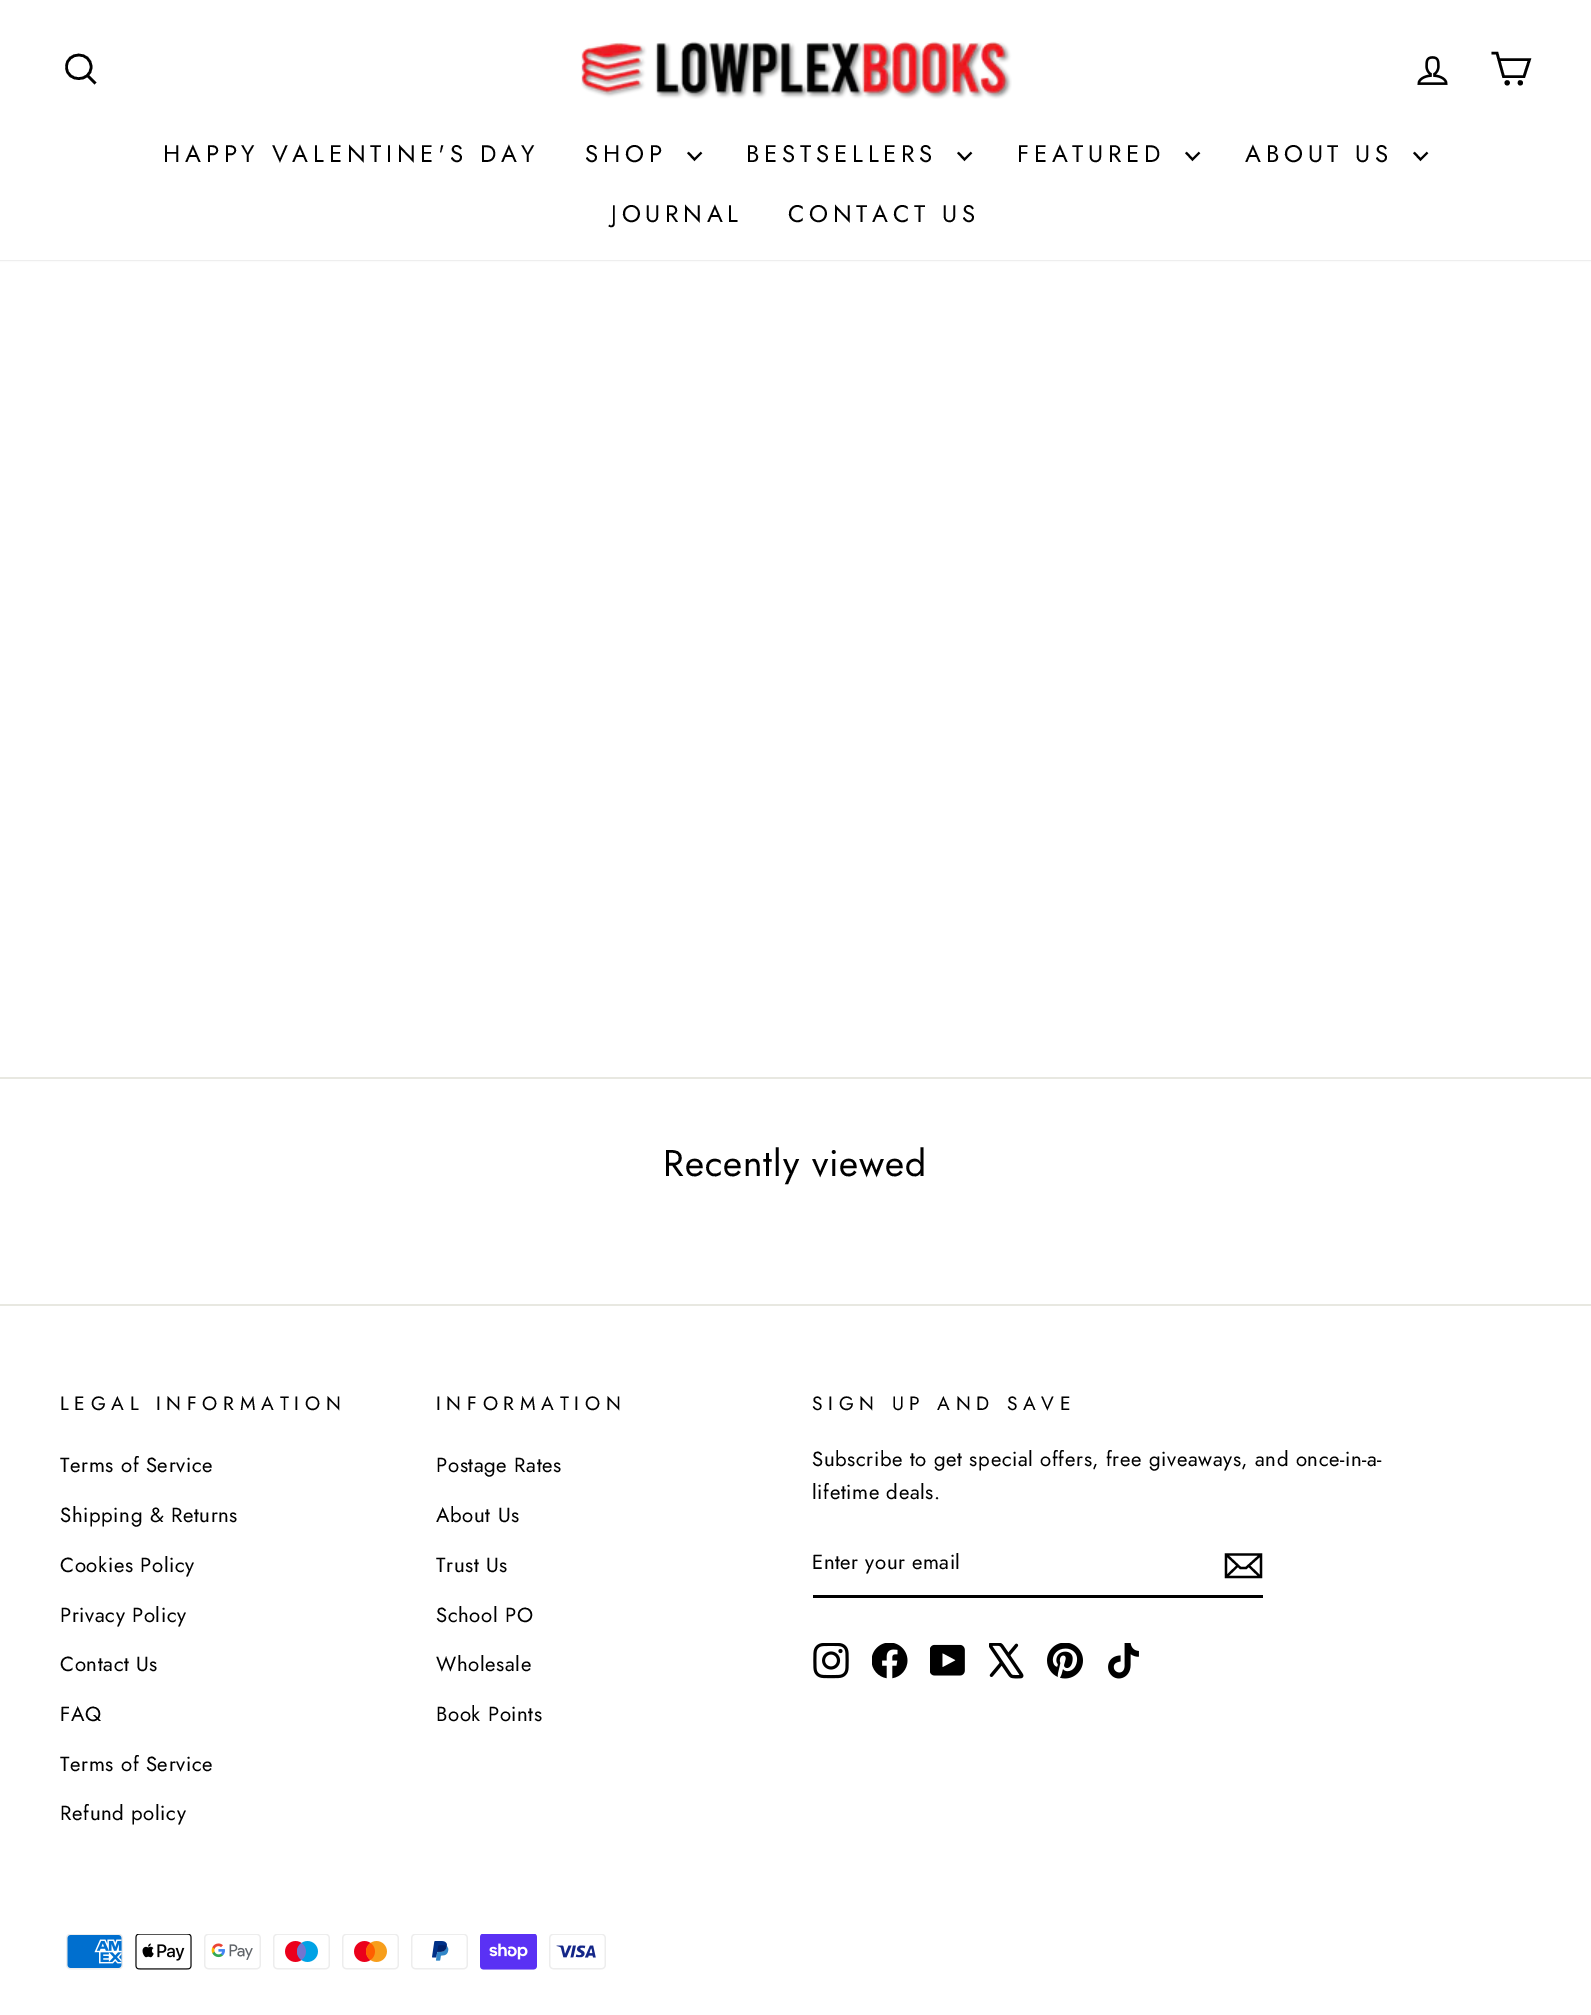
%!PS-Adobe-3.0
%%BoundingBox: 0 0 1591 2015
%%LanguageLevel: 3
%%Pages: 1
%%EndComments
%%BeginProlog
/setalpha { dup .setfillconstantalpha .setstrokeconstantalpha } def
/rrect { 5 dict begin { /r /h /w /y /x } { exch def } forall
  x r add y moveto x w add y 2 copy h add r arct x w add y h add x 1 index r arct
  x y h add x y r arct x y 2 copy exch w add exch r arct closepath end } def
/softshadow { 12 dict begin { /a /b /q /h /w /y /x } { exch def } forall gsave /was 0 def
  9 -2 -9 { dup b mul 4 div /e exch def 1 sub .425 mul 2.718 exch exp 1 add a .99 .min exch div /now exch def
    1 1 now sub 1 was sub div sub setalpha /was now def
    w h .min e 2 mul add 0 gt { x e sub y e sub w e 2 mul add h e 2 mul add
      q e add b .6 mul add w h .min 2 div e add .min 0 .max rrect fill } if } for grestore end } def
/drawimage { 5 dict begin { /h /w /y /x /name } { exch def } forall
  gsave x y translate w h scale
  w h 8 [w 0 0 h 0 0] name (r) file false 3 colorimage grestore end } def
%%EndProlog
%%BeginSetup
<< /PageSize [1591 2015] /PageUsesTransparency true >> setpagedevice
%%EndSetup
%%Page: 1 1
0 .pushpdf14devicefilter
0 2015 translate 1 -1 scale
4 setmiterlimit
1 setgray
0 0 1591 2015 rectfill
0 setgray
0 0 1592 260 0 1 0.2 softshadow
1 setgray
0 0 1591 260 rectfill
0 setgray
2.6 setlinewidth
newpath 91 67 moveto 91 82.5 66.5 82.5 66.5 67 curveto 66.5 51 91 51 91 67 curveto closepath 95.5 83.5 moveto 87.5 75.5 lineto stroke
(images/1.raw) 581 41 431 58 drawimage
(images/2.raw) 1417 56 31 29 drawimage
newpath 1498.5 59.5 moveto 1529.5 59.5 lineto 1524 76.5 lineto 1503.5 76.5 lineto 1497 53 lineto 1491.5 53 lineto stroke
newpath 1507.2 82.8 1.3 0 360 arc closepath stroke
newpath 1520.3 82.8 1.3 0 360 arc closepath stroke
2.1 setlinewidth
newpath 688 152.5 moveto 694.5 159.5 lineto 701.5 152.5 lineto stroke
newpath 958 152.5 moveto 964.5 159.5 lineto 971.5 152.5 lineto stroke
newpath 1186 152.5 moveto 1192.5 159.5 lineto 1199.5 152.5 lineto stroke
newpath 1414 152.5 moveto 1420.5 159.5 lineto 1427.5 152.5 lineto stroke
0.91 0.91 0.882 setrgbcolor
0 1077 1591 2 rectfill
0 1304 1591 2 rectfill
0 setgray
813 1595 450 3 rectfill
2.2 setlinewidth
newpath 1261 1577 moveto 1226 1577 lineto 1226 1554.5 lineto 1261 1554.5 lineto closepath 1226 1554.5 moveto 1240.5 1568 lineto 1246 1568 lineto 1261 1554.5 lineto 1238 1565.5 moveto 1226.5 1576.5 lineto 1260.5 1577 moveto 1248.5 1565.5 lineto stroke
(images/3.raw) 813 1643 36 36 drawimage
(images/4.raw) 872 1643 36 36 drawimage
(images/5.raw) 930 1644 35 32 drawimage
(images/6.raw) 989 1643 35 36 drawimage
(images/7.raw) 1047 1643 36 36 drawimage
(images/8.raw) 1108 1643 31 36 drawimage
(images/9.raw) 66 1934 57 36 drawimage
(images/10.raw) 135 1934 57 36 drawimage
(images/11.raw) 204 1934 57 36 drawimage
(images/12.raw) 273 1934 57 36 drawimage
(images/13.raw) 342 1934 57 36 drawimage
(images/14.raw) 411 1934 57 36 drawimage
(images/15.raw) 480 1934 57 36 drawimage
(images/16.raw) 549 1934 57 36 drawimage
/Jost-Regular [24 0 0 -24 0 0] selectfont
163 162 moveto 4.8 0 (HAPPY VALENTINE'S DAY) ashow
585 162 moveto 4.8 0 (SHOP) ashow
746 162 moveto 4.8 0 (BESTSELLERS) ashow
1017 162 moveto 4.8 0 (FEATURED) ashow
1245 162 moveto 4.8 0 (ABOUT US) ashow
611 222 moveto 4.8 0 (JOURNAL) ashow
788 222 moveto 4.8 0 (CONTACT US) ashow
/Jost-Regular [37 0 0 -37 0 0] selectfont
663 1176 moveto 0.9 0 (Recently viewed) ashow
/Jost-Regular [19.25 0 0 -19.25 0 0] selectfont
60 1410 moveto 5.75 0 (LEGAL INFORMATION) ashow
/Jost-Regular [20.4 0 0 -20.4 0 0] selectfont
60 1472 moveto 0.6 0 (Terms of Service) ashow
60 1522 moveto 0.6 0 (Shipping & Returns) ashow
60 1572 moveto 0.6 0 (Cookies Policy) ashow
60 1622 moveto 0.6 0 (Privacy Policy) ashow
60 1671 moveto 0.6 0 (Contact Us) ashow
60 1721 moveto 0.6 0 (FAQ) ashow
60 1771 moveto 0.6 0 (Terms of Service) ashow
60 1820 moveto 0.6 0 (Refund policy) ashow
/Jost-Regular [19.25 0 0 -19.25 0 0] selectfont
436 1410 moveto 5.75 0 (INFORMATION) ashow
/Jost-Regular [20.4 0 0 -20.4 0 0] selectfont
436 1472 moveto 0.6 0 (Postage Rates) ashow
436 1522 moveto 0.6 0 (About Us) ashow
436 1572 moveto 0.6 0 (Trust Us) ashow
436 1622 moveto 0.6 0 (School PO) ashow
436 1671 moveto 0.6 0 (Wholesale) ashow
436 1721 moveto 0.6 0 (Book Points) ashow
/Jost-Regular [19.25 0 0 -19.25 0 0] selectfont
812 1410 moveto 5.75 0 (SIGN UP AND SAVE) ashow
/Jost-Regular [20.4 0 0 -20.4 0 0] selectfont
812 1466 moveto 0.6 0 (Subscribe to get special offers, free giveaways, and once-in-a-) ashow
812 1499 moveto 0.6 0 (lifetime deals.) ashow
812 1569 moveto 0.5 0 (Enter your email) ashow
.poppdf14devicefilter showpage
%%EOF
